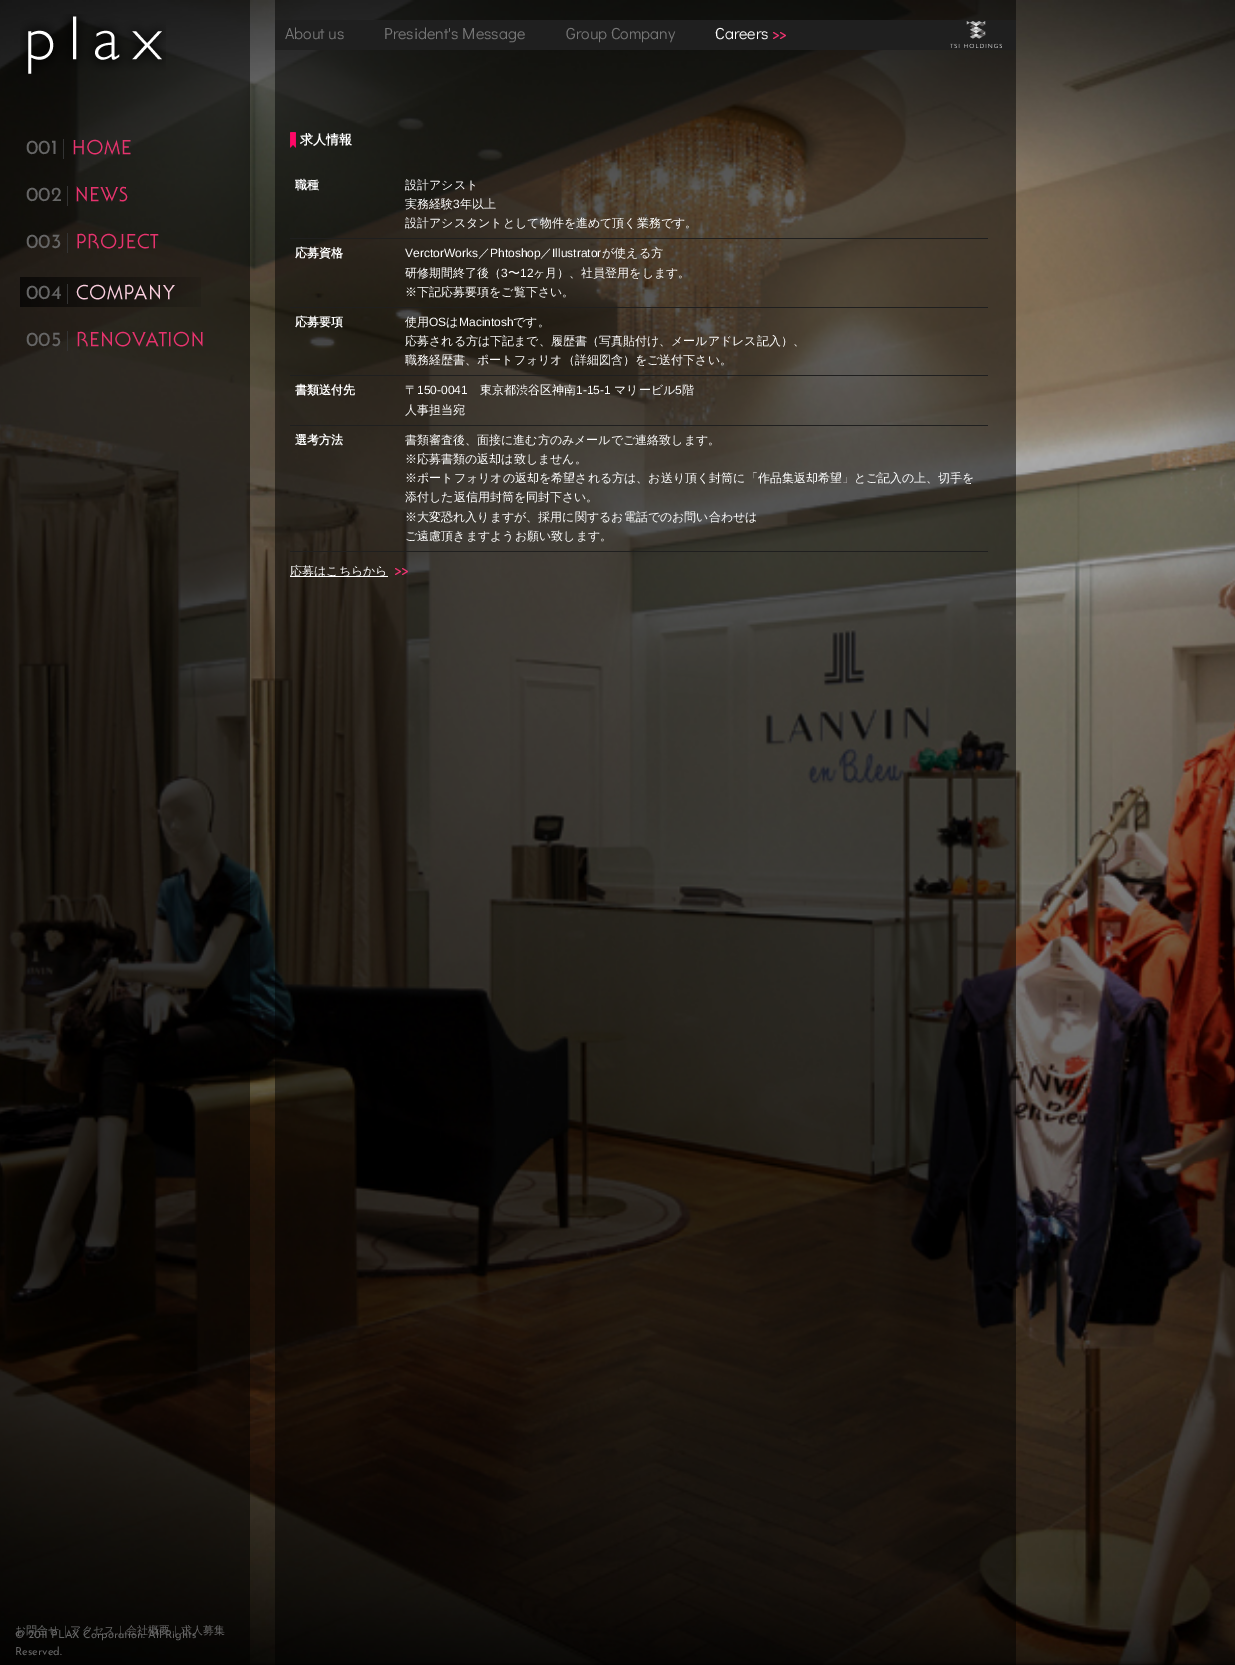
%!PS-Adobe-3.0
%%BoundingBox: 0 0 1235 1665
%%LanguageLevel: 3
%%Pages: 1
%%EndComments
%%BeginProlog
/setalpha { dup .setfillconstantalpha .setstrokeconstantalpha } def
/rrect { 5 dict begin { /r /h /w /y /x } { exch def } forall
  x r add y moveto x w add y 2 copy h add r arct x w add y h add x 1 index r arct
  x y h add x y r arct x y 2 copy exch w add exch r arct closepath end } def
/softshadow { 12 dict begin { /a /b /q /h /w /y /x } { exch def } forall gsave /was 0 def
  9 -2 -9 { dup b mul 4 div /e exch def 1 sub .425 mul 2.718 exch exp 1 add a .99 .min exch div /now exch def
    1 1 now sub 1 was sub div sub setalpha /was now def
    w h .min e 2 mul add 0 gt { x e sub y e sub w e 2 mul add h e 2 mul add
      q e add b .6 mul add w h .min 2 div e add .min 0 .max rrect fill } if } for grestore end } def
/drawimage { 5 dict begin { /h /w /y /x /name } { exch def } forall
  gsave x y translate w h scale
  w h 8 [w 0 0 h 0 0] name (r) file false 3 colorimage grestore end } def
%%EndProlog
%%BeginSetup
<< /PageSize [1235 1665] /PageUsesTransparency true >> setpagedevice
%%EndSetup
%%Page: 1 1
0 .pushpdf14devicefilter
0 1665 translate 1 -1 scale
4 setmiterlimit
1 setgray
0 0 1235 1665 rectfill
(images/1.raw) 0 0 1235 1665 drawimage
0.5 setalpha
0 setgray
0 0 250 1665 rectfill
1 setalpha
(images/2.raw) 20 14 146 60 drawimage
0.2 setgray
63 139 1 20 rectfill
(images/3.raw) 73 139 58 16 drawimage
67 186 1 20 rectfill
(images/4.raw) 76 186 52 16 drawimage
67 233 1 20 rectfill
(images/5.raw) 77 233 82 16 drawimage
(images/6.raw) 20 277 181 30 drawimage
67 284 1 20 rectfill
(images/7.raw) 76 284 99 16 drawimage
67 331 1 20 rectfill
(images/8.raw) 77 331 126 16 drawimage
0.5 setalpha
0 setgray
275 0 741 1665 rectfill
1 setalpha
0.122 setgray
275 20 741 30 rectfill
(images/9.raw) 773 32 13 7 drawimage
(images/10.raw) 950 21 52 27 drawimage
(images/11.raw) 290 132 6 16 drawimage
290 238 698 1 rectfill
290 307 698 1 rectfill
290 375 698 1 rectfill
290 425 698 1 rectfill
290 551 698 1 rectfill
1 setgray
290 576 98 1 rectfill
(images/12.raw) 395 568 13 7 drawimage
0 setgray
0 1665 1235 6 0 2 1 softshadow
/JosefinSans-Regular [20 0 0 -20 0 0] selectfont
0.4 setgray
26 154 moveto (001) show
26 201 moveto (002) show
26 248 moveto (003) show
26 299 moveto (004) show
26 346 moveto (005) show
/WenQuanYiZenHei-Medium [11 0 0 -11 0 0] selectfont
15 1634 moveto (お問合せ｜アクセス｜会社概要｜求人募集) show
/JosefinSans-Regular [11 0 0 -11 0 0] selectfont
15 1638 moveto (© 2011 PLAX Corporation. All Rights) show
15 1655 moveto (Reserved.) show
/DidactGothic-Regular [16 0 0 -16 0 0] selectfont
0.467 setgray
285 39 moveto (About us) show
384 39 moveto (President's Message) show
566 39 moveto (Group Company) show
1 setgray
715 39 moveto (Careers) show
/WenQuanYiZenHei-Bold [13 0 0 -13 0 0] selectfont
300 144 moveto (求人情報) show
/WenQuanYiZenHei-Bold [12 0 0 -12 0 0] selectfont
295 189 moveto (職種) show
/WenQuanYiZenHei-Medium [12 0 0 -12 0 0] selectfont
405 189 moveto (設計アシスト) show
405 208 moveto (実務経験) show
/LiberationSans-Regular [12 0 0 -12 0 0] selectfont
453 208 moveto (3) show
/WenQuanYiZenHei-Medium [12 0 0 -12 0 0] selectfont
460 208 moveto (年以上) show
405 227 moveto (設計アシスタントとして物件を進めて頂く業務です。) show
/WenQuanYiZenHei-Bold [12 0 0 -12 0 0] selectfont
295 257 moveto (応募資格) show
/LiberationSans-Regular [12 0 0 -12 0 0] selectfont
405 257 moveto (VerctorWorks) show
/WenQuanYiZenHei-Medium [12 0 0 -12 0 0] selectfont
478 257 moveto (／) show
/LiberationSans-Regular [12 0 0 -12 0 0] selectfont
490 257 moveto (Phtoshop) show
/WenQuanYiZenHei-Medium [12 0 0 -12 0 0] selectfont
540 257 moveto (／) show
/LiberationSans-Regular [12 0 0 -12 0 0] selectfont
552 257 moveto (Illustrator) show
/WenQuanYiZenHei-Medium [12 0 0 -12 0 0] selectfont
602 257 moveto (が使える方) show
405 277 moveto (研修期間終了後（) show
/LiberationSans-Regular [12 0 0 -12 0 0] selectfont
501 277 moveto (3) show
/WenQuanYiZenHei-Medium [12 0 0 -12 0 0] selectfont
508 277 moveto (〜) show
/LiberationSans-Regular [12 0 0 -12 0 0] selectfont
520 277 moveto (12) show
/WenQuanYiZenHei-Medium [12 0 0 -12 0 0] selectfont
533 277 moveto (ヶ月）、社員登用をします。) show
405 296 moveto (※下記応募要項をご覧下さい。) show
/WenQuanYiZenHei-Bold [12 0 0 -12 0 0] selectfont
295 326 moveto (応募要項) show
/WenQuanYiZenHei-Medium [12 0 0 -12 0 0] selectfont
405 326 moveto (使用) show
/LiberationSans-Regular [12 0 0 -12 0 0] selectfont
429 326 moveto (OS) show
/WenQuanYiZenHei-Medium [12 0 0 -12 0 0] selectfont
446 326 moveto (は) show
/LiberationSans-Regular [12 0 0 -12 0 0] selectfont
459 326 moveto (Macintosh) show
/WenQuanYiZenHei-Medium [12 0 0 -12 0 0] selectfont
513 326 moveto (です。) show
405 345 moveto (応募される方は下記まで、履歴書（写真貼付け、メールアドレス記入）、) show
405 364 moveto (職務経歴書、ポートフォリオ（詳細図含）をご送付下さい。) show
/WenQuanYiZenHei-Bold [12 0 0 -12 0 0] selectfont
295 394 moveto (書類送付先) show
/WenQuanYiZenHei-Medium [12 0 0 -12 0 0] selectfont
405 394 moveto (〒) show
/LiberationSans-Regular [12 0 0 -12 0 0] selectfont
417 394 moveto (150-0041) show
/WenQuanYiZenHei-Medium [12 0 0 -12 0 0] selectfont
480 394 moveto (東京都渋谷区神南) show
/LiberationSans-Regular [12 0 0 -12 0 0] selectfont
576 394 moveto (1-15-1) show
/WenQuanYiZenHei-Medium [12 0 0 -12 0 0] selectfont
614 394 moveto (マリービル) show
/LiberationSans-Regular [12 0 0 -12 0 0] selectfont
675 394 moveto (5) show
/WenQuanYiZenHei-Medium [12 0 0 -12 0 0] selectfont
682 394 moveto (階) show
405 414 moveto (人事担当宛) show
/WenQuanYiZenHei-Bold [12 0 0 -12 0 0] selectfont
295 444 moveto (選考方法) show
/WenQuanYiZenHei-Medium [12 0 0 -12 0 0] selectfont
405 444 moveto (書類審査後、面接に進む方のみメールでご連絡致します。) show
405 463 moveto (※応募書類の返却は致しません。) show
405 482 moveto (※ポートフォリオの返却を希望される方は、お送り頂く封筒に「作品集返却希望」とご記入の上、切手を) show
405 501 moveto (添付した返信用封筒を同封下さい。) show
405 521 moveto (※大変恐れ入りますが、採用に関するお電話でのお問い合わせは) show
405 540 moveto (ご遠慮頂きますようお願い致します。) show
290 575 moveto (応募はこちらから) show
.poppdf14devicefilter showpage
%%EOF
